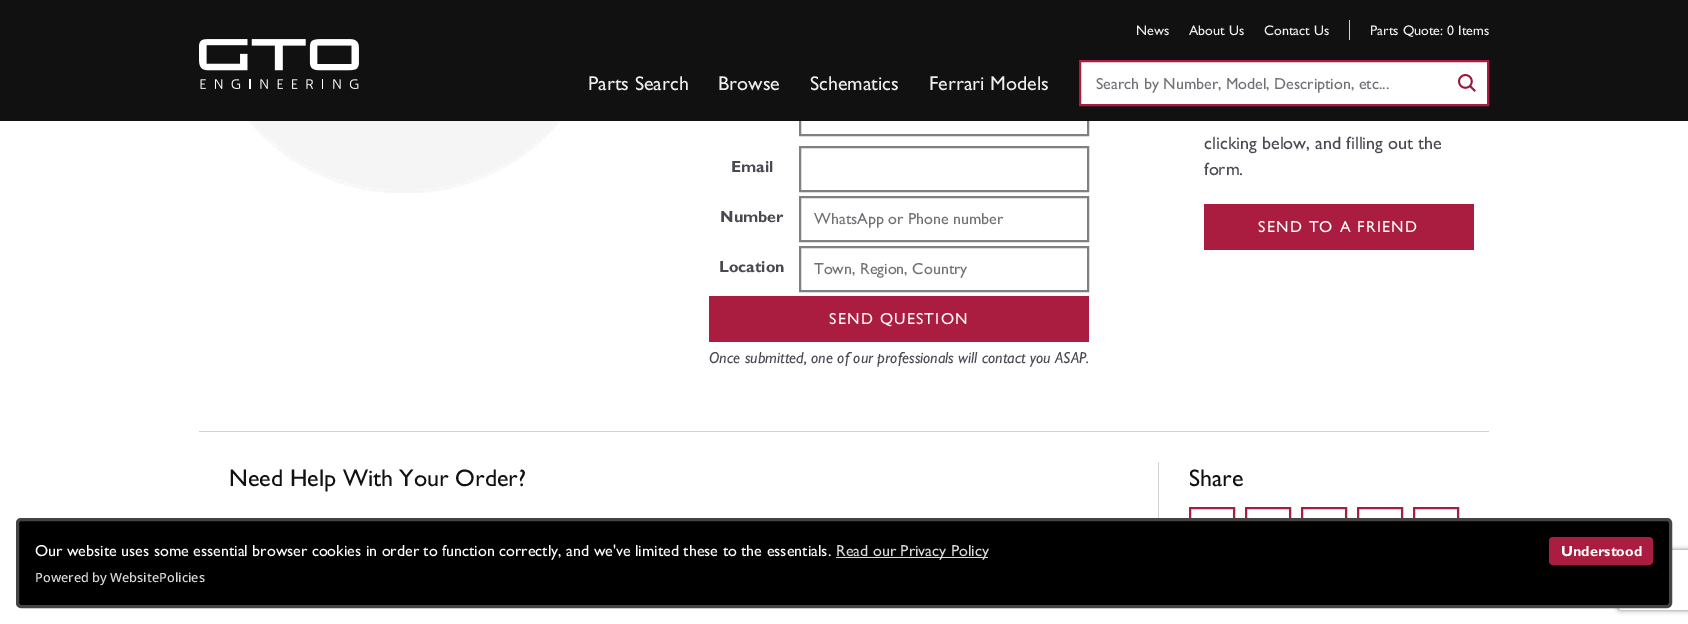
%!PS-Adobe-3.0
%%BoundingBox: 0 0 1688 624
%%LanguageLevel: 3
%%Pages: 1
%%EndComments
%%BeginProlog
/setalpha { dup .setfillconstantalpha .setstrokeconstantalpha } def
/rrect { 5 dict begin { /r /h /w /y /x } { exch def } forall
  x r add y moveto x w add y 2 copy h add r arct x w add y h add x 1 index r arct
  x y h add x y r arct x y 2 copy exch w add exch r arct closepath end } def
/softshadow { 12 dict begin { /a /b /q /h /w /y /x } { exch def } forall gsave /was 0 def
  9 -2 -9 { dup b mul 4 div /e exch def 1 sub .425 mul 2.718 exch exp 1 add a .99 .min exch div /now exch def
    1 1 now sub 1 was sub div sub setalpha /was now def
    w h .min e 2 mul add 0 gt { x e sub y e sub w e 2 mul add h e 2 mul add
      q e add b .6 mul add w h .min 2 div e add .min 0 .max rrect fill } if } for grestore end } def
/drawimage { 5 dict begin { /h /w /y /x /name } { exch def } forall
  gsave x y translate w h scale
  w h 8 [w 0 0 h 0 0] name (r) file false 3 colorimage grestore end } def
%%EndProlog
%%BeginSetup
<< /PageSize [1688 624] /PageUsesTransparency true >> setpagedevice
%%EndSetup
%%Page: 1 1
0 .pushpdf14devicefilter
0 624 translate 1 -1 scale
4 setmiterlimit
1 setgray
0 0 1688 624 rectfill
0.502 setgray
2 setlinewidth
800 41 288 94 rectstroke
0.067 setgray
0 0 1688 121 rectfill
(images/1.raw) 199 39 160 50 drawimage
0.824 0.824 0.831 setrgbcolor
1349 20 1 20 rectfill
1 setgray
newpath 1080 61 moveto 1488 61 lineto 1488 105 lineto 1080 105 lineto closepath gsave fill grestore
0.667 0.114 0.255 setrgbcolor
stroke
(images/2.raw) 1458 74 18 18 drawimage
(images/3.raw) 247 121 315 72 drawimage
0.502 setgray
800 147 288 44 rectstroke
800 197 288 44 rectstroke
800 247 288 44 rectstroke
0.667 0.114 0.255 setrgbcolor
709 296 380 46 rectfill
1204 204 270 46 rectfill
0.824 0.824 0.831 setrgbcolor
199 431 1290 1 rectfill
1158 462 1 56 rectfill
0.667 0.114 0.255 setrgbcolor
1190 508 44 44 rectstroke
1246 508 44 44 rectstroke
1302 508 44 44 rectstroke
1358 508 44 44 rectstroke
1414 508 44 44 rectstroke
gsave
newpath 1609 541 moveto 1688 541 lineto 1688 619 lineto 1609 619 lineto closepath 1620 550 moveto 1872 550 lineto 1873 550 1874 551 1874 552 curveto 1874 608 lineto 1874 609 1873 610 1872 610 curveto 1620 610 lineto 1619 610 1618 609 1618 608 curveto 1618 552 lineto 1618 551 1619 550 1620 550 curveto closepath eoclip newpath
0.502 setgray
1618 550 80 60 2 2.5 1 softshadow
grestore
0 setgray
17.5 519.5 1653 87 3.5 rrect gsave fill grestore
0.267 setgray
3 setlinewidth
stroke
0.851 setgray
836 557 152 1 rectfill
0.667 0.114 0.255 setrgbcolor
1549 537 104 28 4 rrect fill
/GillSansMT-Regular [14 0 0 -14 0 0] selectfont
0.933 setgray
1136 35 moveto (News) show
1189 35 moveto (About Us) show
1264 35 moveto (Contact Us) show
1370 35 moveto (Parts Quote: 0 Items) show
/GillSansMT-Regular [20 0 0 -20 0 0] selectfont
588 90 moveto (Parts Search) show
718 90 moveto (Browse) show
810 90 moveto (Schematics) show
929 90 moveto (Ferrari Models) show
/GillSansMT-Regular [16 0 0 -16 0 0] selectfont
0.439 0.439 0.463 setrgbcolor
1096 89 moveto (Search by Number, Model, Description, etc...) show
/GillSansMT-Bold [16 0 0 -16 0 0] selectfont
0.286 0.286 0.322 setrgbcolor
731 172 moveto (Email) show
720 222 moveto (Number) show
/GillSansMT-Regular [16 0 0 -16 0 0] selectfont
0.439 0.439 0.463 setrgbcolor
814 224 moveto (WhatsApp or Phone number) show
/GillSansMT-Bold [16 0 0 -16 0 0] selectfont
0.286 0.286 0.322 setrgbcolor
719 272 moveto (Location) show
/GillSansMT-Regular [16 0 0 -16 0 0] selectfont
0.439 0.439 0.463 setrgbcolor
814 274 moveto (Town, Region, Country) show
1 setgray
829 324 moveto 1.25 0 (SEND QUESTION) ashow
/GillSansMT-Italic [16 0 0 -16 0 0] selectfont
0.286 0.286 0.322 setrgbcolor
709 363 moveto (Once submitted, one of our professionals will contact you ASAP.) show
/GillSansMT-Regular [18 0 0 -18 0 0] selectfont
1204 149 moveto (clicking below, and filling out the) show
1204 175 moveto (form.) show
/GillSansMT-Regular [16 0 0 -16 0 0] selectfont
1 setgray
1258 232 moveto 1.25 0 (SEND TO A FRIEND) ashow
/GillSansMT-Regular [24 0 0 -24 0 0] selectfont
0.067 setgray
229 486 moveto (Need Help With Your Order?) show
1189 486 moveto (Share) show
/GillSansMT-Regular [16 0 0 -16 0 0] selectfont
1 setgray
35 556 moveto (Our website uses some essential browser cookies in order to function correctly, and we've limited these to the essentials.) show
0.851 setgray
836 556 moveto (Read our Privacy Policy) show
/GillSansMT-Bold [14.5 0 0 -14.5 0 0] selectfont
1 setgray
1561 556 moveto (Understood) show
/NotoSans-Medium [12.75 0 0 -12.75 0 0] selectfont
0.851 setgray
35 582 moveto (Powered by WebsitePolicies) show
.poppdf14devicefilter showpage
%%EOF
